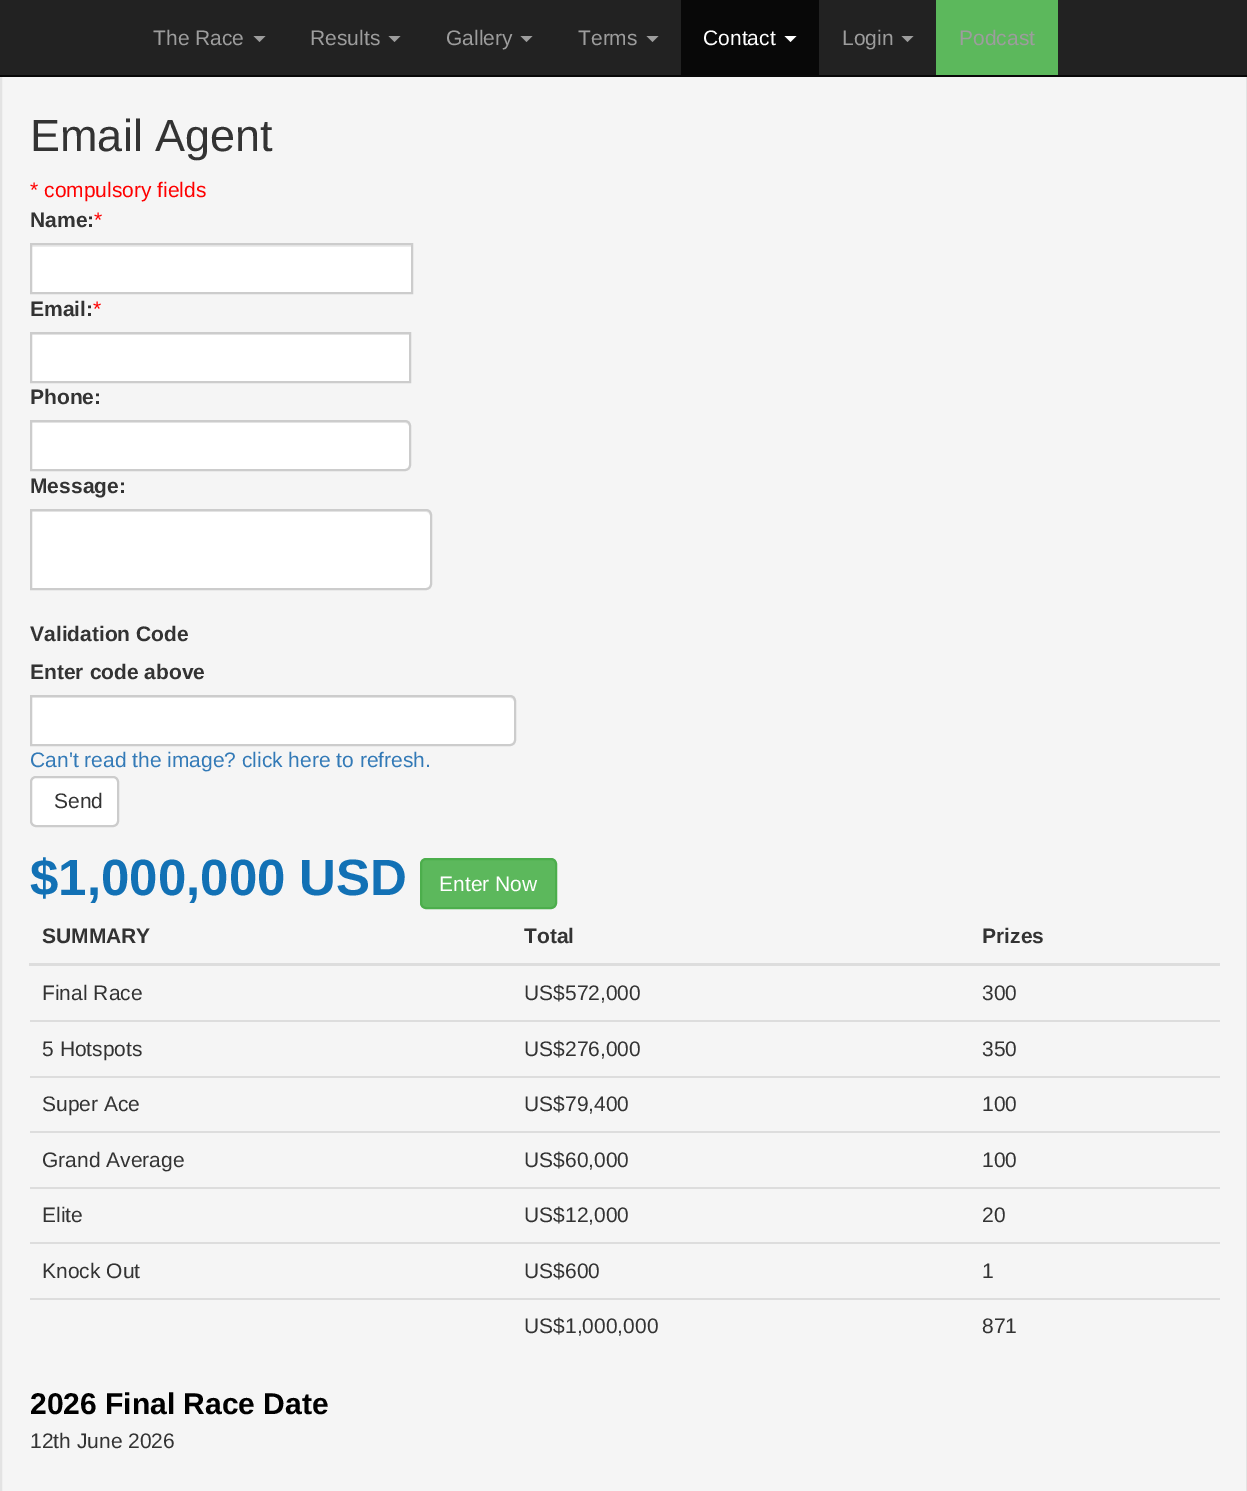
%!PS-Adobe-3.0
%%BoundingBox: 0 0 1247 1491
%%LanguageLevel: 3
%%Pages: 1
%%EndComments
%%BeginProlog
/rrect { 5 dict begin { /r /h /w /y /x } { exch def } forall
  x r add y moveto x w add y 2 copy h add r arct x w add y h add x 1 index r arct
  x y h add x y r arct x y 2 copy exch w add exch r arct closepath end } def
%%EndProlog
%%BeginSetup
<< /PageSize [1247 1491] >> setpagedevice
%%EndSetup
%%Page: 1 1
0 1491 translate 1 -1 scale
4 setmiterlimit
0.961 setgray
0 0 1247 1491 rectfill
0.89 setgray
2 setlinewidth
1 -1 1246 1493 rectstroke
0.133 setgray
0 0 1247 75 rectfill
0.031 setgray
0 75 1247 2 rectfill
0.616 setgray
newpath 253.5 36 moveto 265.5 36 lineto 259.5 42 lineto closepath fill
newpath 388.5 36 moveto 400.5 36 lineto 394.5 42 lineto closepath fill
newpath 520.5 36 moveto 532.5 36 lineto 526.5 42 lineto closepath fill
newpath 646.5 36 moveto 658.5 36 lineto 652.5 42 lineto closepath fill
0.031 setgray
681 0 138 75 rectfill
1 setgray
newpath 784.5 36 moveto 796.5 36 lineto 790.5 42 lineto closepath fill
0.616 setgray
newpath 901.5 36 moveto 913.5 36 lineto 907.5 42 lineto closepath fill
0.361 0.722 0.361 setrgbcolor
936 0 122 75 rectfill
1 setgray
32 247 379 45 rectfill
0.925 setgray
32 245 379 2 rectfill
0.8 setgray
31 244 381 49 rectstroke
1 setgray
32 335 377 46 rectfill
0.925 setgray
32 334 378 1 rectfill
0.8 setgray
31 333 379 49 rectstroke
1 setgray
newpath 30 420 moveto 405 420 lineto 408.5 420 411 422.5 411 426 curveto 411 465 lineto 411 468.5 408.5 471 405 471 curveto 30 471 lineto closepath fill
0.925 setgray
newpath 32 423 moveto 405 423 lineto 407 423 410 425 410 428 curveto 410 425 408 422 405 422 curveto 32 422 lineto closepath fill
0.8 setgray
newpath 31 421 moveto 405 421 lineto 408 421 410 423 410 426 curveto 410 465 lineto 410 468 408 470 405 470 curveto 31 470 lineto closepath stroke
1 setgray
newpath 30 509 moveto 426 509 lineto 429.5 509 432 511.5 432 515 curveto 432 584 lineto 432 587.5 429.5 590 426 590 curveto 30 590 lineto closepath fill
0.925 setgray
newpath 32 512 moveto 426 512 lineto 428 512 430 514 430 516 curveto 430 586 lineto 431 585 431 584 431 583 curveto 431 515 lineto 431 512 429 510 426 510 curveto 32 510 lineto closepath fill
0.8 setgray
newpath 31 510 moveto 426 510 lineto 429 510 431 512 431 515 curveto 431 584 lineto 431 587 429 589 426 589 curveto 31 589 lineto closepath stroke
1 setgray
newpath 30 695 moveto 510 695 lineto 513.5 695 516 697.5 516 701 curveto 516 740 lineto 516 743.5 513.5 746 510 746 curveto 30 746 lineto closepath fill
0.925 setgray
newpath 32 698 moveto 510 698 lineto 512 698 514 700 514 702 curveto 514 742 lineto 515 741 515 740 515 739 curveto 515 701 lineto 515 698 513 696 510 696 curveto 32 696 lineto closepath fill
0.8 setgray
newpath 31 696 moveto 510 696 lineto 513 696 515 698 515 701 curveto 515 740 lineto 515 743 513 745 510 745 curveto 31 745 lineto closepath stroke
1 setgray
31 777 87 49 5 rrect gsave fill grestore
0.8 setgray
stroke
0.361 0.722 0.361 setrgbcolor
421 859 135 49 5 rrect gsave fill grestore
0.298 0.682 0.298 setrgbcolor
stroke
0.867 setgray
29 963 1191 3 rectfill
30 1020 1190 2 rectfill
30 1076 1190 2 rectfill
30 1131 1190 2 rectfill
30 1187 1190 2 rectfill
30 1242 1190 2 rectfill
30 1298 1190 2 rectfill
/LiberationSans-Regular [21 0 0 -21 0 0] selectfont
0.616 setgray
153 45 moveto (The Race) show
310 45 moveto (Results) show
446 45 moveto (Gallery) show
578 45 moveto (Terms) show
1 setgray
703 45 moveto (Contact) show
0.616 setgray
842 45 moveto (Login) show
959 45 moveto (Podcast) show
/LiberationSans-Regular [45 0 0 -45 0 0] selectfont
0.2 setgray
30 151 moveto (Email Agent) show
/LiberationSans-Regular [21 0 0 -21 0 0] selectfont
1 0 0 setrgbcolor
30 197 moveto (* compulsory fields) show
/LiberationSans-Bold [21 0 0 -21 0 0] selectfont
0.2 setgray
30 227 moveto (Name:) show
/LiberationSans-Regular [21 0 0 -21 0 0] selectfont
1 0 0 setrgbcolor
94 227 moveto (*) show
/LiberationSans-Bold [21 0 0 -21 0 0] selectfont
0.2 setgray
30 316 moveto (Email:) show
/LiberationSans-Regular [21 0 0 -21 0 0] selectfont
1 0 0 setrgbcolor
93 316 moveto (*) show
/LiberationSans-Bold [21 0 0 -21 0 0] selectfont
0.2 setgray
30 404 moveto (Phone:) show
30 493 moveto (Message:) show
30 641 moveto (Validation Code) show
30 679 moveto (Enter code above) show
/LiberationSans-Regular [21 0 0 -21 0 0] selectfont
0.2 0.478 0.718 setrgbcolor
30 767 moveto (Can't read the image? click here to refresh.) show
0.2 setgray
54 808 moveto (Send) show
/LiberationSans-Bold [51 0 0 -51 0 0] selectfont
0.071 0.443 0.71 setrgbcolor
30 895 moveto ($1,000,000 USD) show
/LiberationSans-Regular [21 0 0 -21 0 0] selectfont
1 setgray
439 891 moveto (Enter Now) show
/LiberationSans-Bold [21 0 0 -21 0 0] selectfont
0.2 setgray
42 943 moveto (SUMMARY) show
524 943 moveto (Total) show
982 943 moveto (Prizes) show
/LiberationSans-Regular [21 0 0 -21 0 0] selectfont
42 1000 moveto (Final Race) show
524 1000 moveto (US$572,000) show
982 1000 moveto (300) show
42 1056 moveto (5 Hotspots) show
524 1056 moveto (US$276,000) show
982 1056 moveto (350) show
42 1111 moveto (Super Ace) show
524 1111 moveto (US$79,400) show
982 1111 moveto (100) show
42 1167 moveto (Grand Average) show
524 1167 moveto (US$60,000) show
982 1167 moveto (100) show
42 1222 moveto (Elite) show
524 1222 moveto (US$12,000) show
982 1222 moveto (20) show
42 1278 moveto (Knock Out) show
524 1278 moveto (US$600) show
982 1278 moveto (1) show
524 1333 moveto (US$1,000,000) show
982 1333 moveto (871) show
/LiberationSans-Bold [30 0 0 -30 0 0] selectfont
0 setgray
30 1414 moveto (2026 Final Race Date) show
/LiberationSans-Regular [21 0 0 -21 0 0] selectfont
0.2 setgray
30 1448 moveto (12th June 2026) show
showpage
%%EOF
